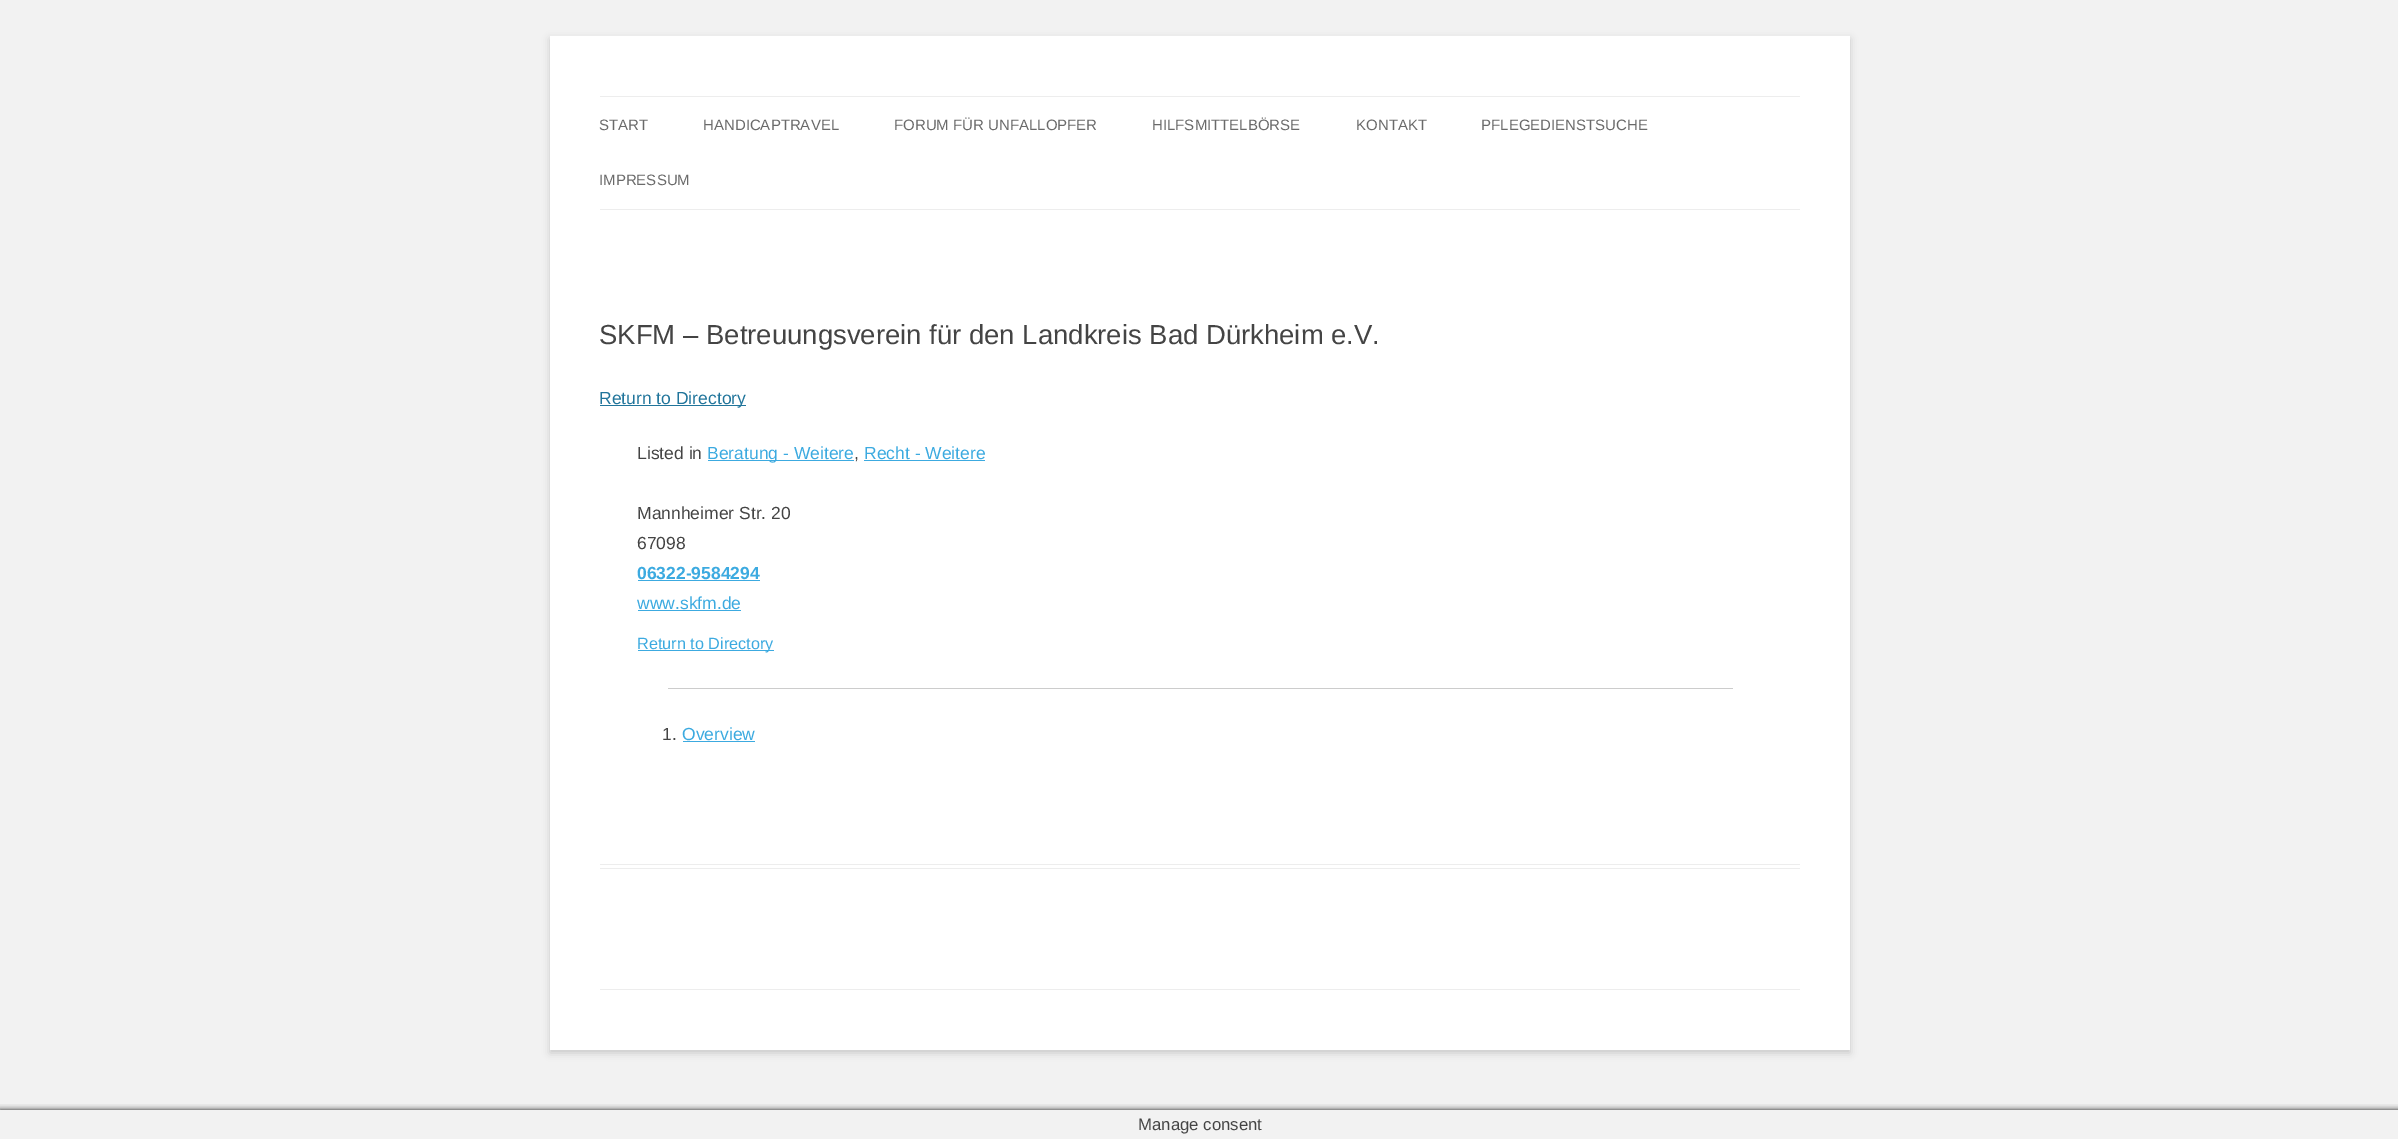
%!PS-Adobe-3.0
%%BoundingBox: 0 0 2398 1139
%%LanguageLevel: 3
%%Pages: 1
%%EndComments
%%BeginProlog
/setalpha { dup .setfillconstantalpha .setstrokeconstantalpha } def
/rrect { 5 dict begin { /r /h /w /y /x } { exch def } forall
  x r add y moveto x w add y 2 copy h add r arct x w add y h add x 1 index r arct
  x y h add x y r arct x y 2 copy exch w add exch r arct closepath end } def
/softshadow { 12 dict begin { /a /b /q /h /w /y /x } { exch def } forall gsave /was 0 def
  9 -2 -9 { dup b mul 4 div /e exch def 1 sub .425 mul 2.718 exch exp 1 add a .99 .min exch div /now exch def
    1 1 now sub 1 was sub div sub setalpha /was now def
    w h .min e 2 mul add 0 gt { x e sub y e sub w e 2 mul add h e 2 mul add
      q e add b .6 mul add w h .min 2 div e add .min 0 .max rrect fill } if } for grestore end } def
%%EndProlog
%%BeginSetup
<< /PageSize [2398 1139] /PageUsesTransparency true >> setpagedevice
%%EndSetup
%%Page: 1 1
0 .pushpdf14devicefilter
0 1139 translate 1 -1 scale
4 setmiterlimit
0.949 setgray
0 0 2398 1139 rectfill
0.392 setgray
550 39 1300 1014 0 4 0.3 softshadow
1 setgray
550 36 1300 1014 rectfill
0.929 setgray
600 96 1200 1 rectfill
600 209 1200 1 rectfill
600 864 1200 1 rectfill
600 868 1200 1 rectfill
0.129 0.459 0.608 setrgbcolor
600 405 146 1 rectfill
0.235 0.667 0.878 setrgbcolor
708 460 146 1 rectfill
864 460 121 1 rectfill
638 580 122 1 rectfill
638 610 103 1 rectfill
638 650 136 1 rectfill
0.8 setgray
668 688 1065 1 rectfill
0.235 0.667 0.878 setrgbcolor
683 741 72 1 rectfill
0.929 setgray
600 989 1200 1 rectfill
gsave
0 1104 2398 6 rectclip
0.086 setgray
0 1110 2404 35 0 3 1 softshadow
grestore
/LiberationSans-Regular [15 0 0 -15 0 0] selectfont
0.416 setgray
599 130 moveto (START) show
703 130 moveto (HANDICAPTRAVEL) show
894 130 moveto (FORUM FÜR UNFALLOPFER) show
1152 130 moveto (HILFSMITTELBÖRSE) show
1356 130 moveto (KONTAKT) show
1481 130 moveto (PFLEGEDIENSTSUCHE) show
599 185 moveto (IMPRESSUM) show
/LiberationSans-Regular [27.5 0 0 -27.5 0 0] selectfont
0.267 setgray
599 344 moveto (SKFM – Betreuungsverein für den Landkreis Bad Dürkheim e.V.) show
/LiberationSans-Regular [17.5 0 0 -17.5 0 0] selectfont
0.129 0.459 0.608 setrgbcolor
599 404 moveto (Return to Directory) show
0.267 setgray
637 459 moveto (Listed in) show
0.235 0.667 0.878 setrgbcolor
707 459 moveto (Beratung - Weitere) show
0.267 setgray
854 459 moveto (,) show
0.235 0.667 0.878 setrgbcolor
864 459 moveto (Recht - Weitere) show
0.267 setgray
637 519 moveto (Mannheimer Str. 20) show
637 549 moveto (67098) show
/LiberationSans-Bold [17.5 0 0 -17.5 0 0] selectfont
0.235 0.667 0.878 setrgbcolor
637 579 moveto (06322-9584294) show
/LiberationSans-Regular [17.5 0 0 -17.5 0 0] selectfont
637 609 moveto (www.skfm.de) show
/LiberationSans-Regular [16.25 0 0 -16.25 0 0] selectfont
637 649 moveto (Return to Directory) show
/LiberationSans-Regular [17.5 0 0 -17.5 0 0] selectfont
0.267 setgray
662 740 moveto (1.) show
0.235 0.667 0.878 setrgbcolor
682 740 moveto (Overview) show
/LiberationSans-Regular [16.75 0 0 -16.75 0 0] selectfont
0.267 setgray
1138 1130 moveto (Manage consent) show
.poppdf14devicefilter showpage
%%EOF
